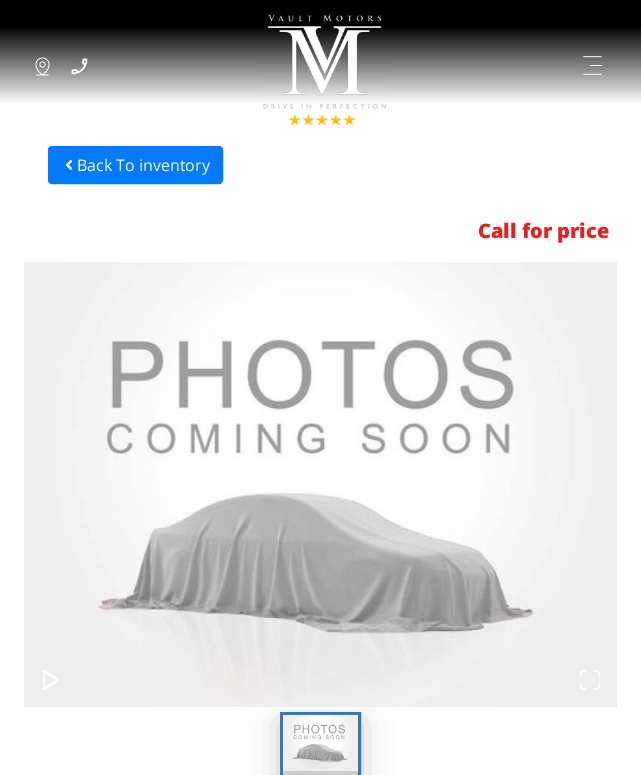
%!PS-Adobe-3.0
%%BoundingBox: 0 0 641 775
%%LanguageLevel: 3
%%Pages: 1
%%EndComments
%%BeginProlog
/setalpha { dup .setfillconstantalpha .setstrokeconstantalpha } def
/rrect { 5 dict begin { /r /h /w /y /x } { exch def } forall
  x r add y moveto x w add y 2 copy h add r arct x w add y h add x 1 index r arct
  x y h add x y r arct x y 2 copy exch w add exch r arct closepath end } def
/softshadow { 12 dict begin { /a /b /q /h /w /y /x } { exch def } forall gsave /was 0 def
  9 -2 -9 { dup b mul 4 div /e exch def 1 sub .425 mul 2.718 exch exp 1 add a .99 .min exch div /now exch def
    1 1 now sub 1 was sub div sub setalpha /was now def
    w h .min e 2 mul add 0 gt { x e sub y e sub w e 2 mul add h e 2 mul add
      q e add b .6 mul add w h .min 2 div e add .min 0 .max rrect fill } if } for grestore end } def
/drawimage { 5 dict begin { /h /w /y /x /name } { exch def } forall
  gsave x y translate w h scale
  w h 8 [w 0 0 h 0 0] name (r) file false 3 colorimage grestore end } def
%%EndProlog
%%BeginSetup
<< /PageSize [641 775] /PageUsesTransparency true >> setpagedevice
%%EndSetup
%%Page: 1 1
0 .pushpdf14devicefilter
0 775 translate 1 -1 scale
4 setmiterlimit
1 setgray
0 0 641 775 rectfill
gsave newpath 0 0 moveto 641 0 lineto 641 103 lineto 0 103 lineto closepath clip newpath
<< /ShadingType 2 /ColorSpace /DeviceRGB /Coords [321 0 321 130] /Extend [true true] /Function << /FunctionType 3 /Domain [0 1] /Functions [<< /FunctionType 2 /Domain [0 1] /C0 [0 0 0] /C1 [0 0 0] /N 1 >> << /FunctionType 2 /Domain [0 1] /C0 [0 0 0] /C1 [1 1 1] /N 1 >> << /FunctionType 2 /Domain [0 1] /C0 [1 1 1] /C1 [1 1 1] /N 1 >>] /Bounds [0.2 0.8] /Encode [0 1 0 1 0 1] >> >> shfill grestore
(images/1.raw) 35 57 15 19 drawimage
(images/2.raw) 71 58 17 17 drawimage
(images/3.raw) 263 14 123 112 drawimage
(images/4.raw) 583 56 19 19 drawimage
0 0.482 1 setrgbcolor
48.5 146.5 174 37 3.5 rrect gsave fill grestore
stroke
(images/5.raw) 65 160 8 10 drawimage
(images/6.raw) 24 262 593 445 drawimage
1 setgray
2 setlinewidth
1 setlinecap
1 setlinejoin
newpath 44 671 moveto 58 680 lineto 44 689 lineto closepath stroke
(images/7.raw) 580 670 20 20 drawimage
gsave
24 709 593 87 rectclip
0 setgray
280 722 81 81 0 15 0.2 softshadow
grestore
0.2 0.478 0.718 setrgbcolor
3 setlinewidth
0 setlinecap
0 setlinejoin
281.5 713.5 78 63 rectstroke
(images/8.raw) 283 715 75 56 drawimage
0.8 setgray
283 771 75 4 rectfill
/OpenSans-Regular [16 0 0 -16 0 0] selectfont
1 setgray
77 171 moveto (Back To inventory) show
/OpenSans-ExtraBold [20 0 0 -20 0 0] selectfont
0.859 0.145 0.149 setrgbcolor
478 238 moveto (Call for price) show
.poppdf14devicefilter showpage
%%EOF
